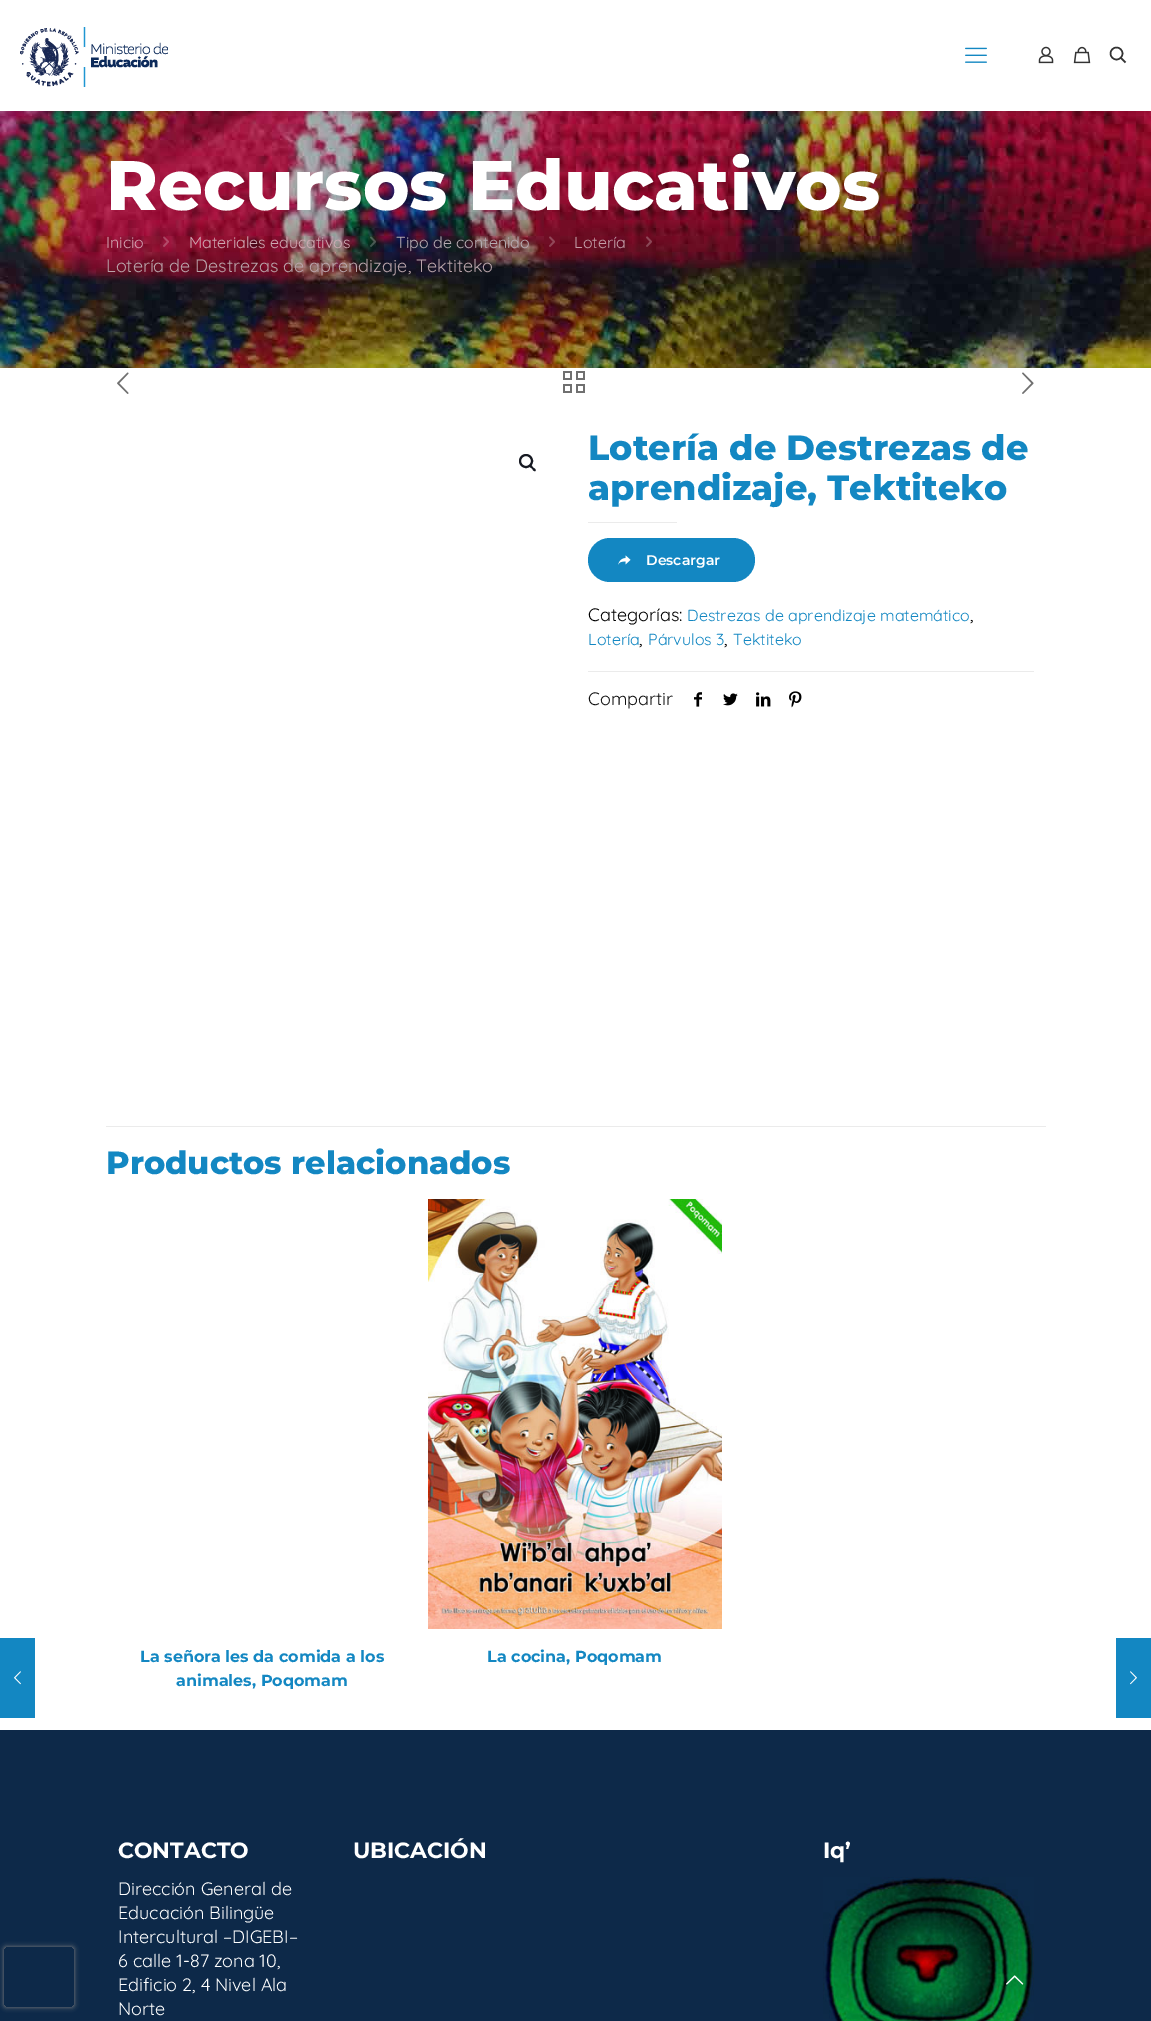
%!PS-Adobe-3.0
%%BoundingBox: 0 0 1151 2021
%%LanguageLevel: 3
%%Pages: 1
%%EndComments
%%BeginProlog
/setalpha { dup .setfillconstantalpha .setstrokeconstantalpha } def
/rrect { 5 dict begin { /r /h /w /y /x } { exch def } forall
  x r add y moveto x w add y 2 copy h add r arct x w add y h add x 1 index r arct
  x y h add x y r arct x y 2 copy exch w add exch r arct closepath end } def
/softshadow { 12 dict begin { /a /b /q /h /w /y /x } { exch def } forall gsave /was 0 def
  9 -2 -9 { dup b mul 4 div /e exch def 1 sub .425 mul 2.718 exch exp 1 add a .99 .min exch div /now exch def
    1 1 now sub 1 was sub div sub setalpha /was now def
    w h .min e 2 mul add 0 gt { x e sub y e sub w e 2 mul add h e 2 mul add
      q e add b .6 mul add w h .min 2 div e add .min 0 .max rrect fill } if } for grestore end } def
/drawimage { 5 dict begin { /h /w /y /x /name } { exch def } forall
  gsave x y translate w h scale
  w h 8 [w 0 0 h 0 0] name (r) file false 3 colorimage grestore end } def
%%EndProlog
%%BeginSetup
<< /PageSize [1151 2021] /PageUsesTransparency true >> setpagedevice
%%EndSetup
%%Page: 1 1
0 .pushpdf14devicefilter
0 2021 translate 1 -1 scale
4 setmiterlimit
1 setgray
0 0 1151 2021 rectfill
0.075 0.529 0.761 setrgbcolor
0 1638 35 80 rectfill
(images/1.raw) 14 1671 7 14 drawimage
(images/6.raw) 0 111 1151 257 drawimage
0 setgray
0 2 1151 111 0 2.5 0.1 softshadow
1 setgray
0 0 1151 111 rectfill
(images/2.raw) 20 27 148 60 drawimage
(images/3.raw) 965 47 22 16 drawimage
(images/4.raw) 1038 46 16 18 drawimage
(images/5.raw) 1073 46 18 18 drawimage
0.2 setgray
1.5 setlinewidth
newpath 1116.5 53.5 6 0 360 arc closepath stroke
newpath 1120.5 57.5 moveto 1125.5 62.5 lineto stroke
(images/7.raw) 163 236 6 11 drawimage
(images/8.raw) 370 236 6 11 drawimage
(images/9.raw) 549 236 6 11 drawimage
(images/10.raw) 646 236 6 11 drawimage
(images/11.raw) 117 372 12 22 drawimage
(images/12.raw) 563 371 22 22 drawimage
(images/13.raw) 1022 372 12 22 drawimage
0.086 0.098 0.133 setrgbcolor
2 setlinewidth
newpath 526 461 6 0 360 arc closepath stroke
newpath 529.5 465 moveto 531 464 532.5 466.5 533 467.5 curveto 534 468 536.5 469.5 535.5 471 curveto 534 472 532.5 469.5 532 468.5 curveto 531 468 528.5 466.5 529.5 465 curveto closepath fill
0.922 setgray
588 522 89 1 rectfill
0.075 0.529 0.761 setrgbcolor
588 538 167 44 22 rrect fill
(images/14.raw) 618 555 13 10 drawimage
0.922 setgray
588 671 446 1 rectfill
(images/15.raw) 694 692 8 15 drawimage
(images/16.raw) 723 693 15 13 drawimage
(images/17.raw) 756 692 15 15 drawimage
(images/18.raw) 789 691 13 17 drawimage
106 1126 940 1 rectfill
(images/19.raw) 428 1199 294 430 drawimage
0.051 0.161 0.286 setrgbcolor
0 1730 1151 291 rectfill
(images/20.raw) 823 1877 211 144 drawimage
0.075 0.529 0.761 setrgbcolor
1116 1638 35 80 rectfill
(images/21.raw) 1130 1671 7 14 drawimage
gsave
newpath 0 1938 moveto 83 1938 lineto 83 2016 lineto 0 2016 lineto closepath 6 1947 moveto 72 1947 lineto 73 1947 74 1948 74 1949 curveto 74 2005 lineto 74 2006 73 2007 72 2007 curveto 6 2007 lineto 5 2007 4 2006 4 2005 curveto 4 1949 lineto 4 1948 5 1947 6 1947 curveto closepath eoclip newpath
0.502 setgray
4 1947 70 60 2 2.5 1 softshadow
grestore
(images/22.raw) 1006 1975 18 10 drawimage
/Montserrat-ExtraBold [70 0 0 -70 0 0] selectfont
1 setgray
106 210 moveto (Recursos Educativos) show
/Quicksand-Regular [16 0 0 -16 0 0] selectfont
0.816 0.627 0.682 setrgbcolor
106 248 moveto (Inicio) show
0.804 0.663 0.698 setrgbcolor
189 248 moveto (Materiales educativos) show
0.71 0.671 0.694 setrgbcolor
396 248 moveto (Tipo de contenido) show
0.761 0.62 0.655 setrgbcolor
574 248 moveto (Lotería) show
/Quicksand-Regular [18 0 0 -18 0 0] selectfont
0.725 0.643 0.667 setrgbcolor
106 272 moveto (Lotería de Destrezas de aprendizaje, Tektiteko) show
/Montserrat-ExtraBold [35 0 0 -35 0 0] selectfont
0.075 0.529 0.761 setrgbcolor
588 460 moveto (Lotería de Destrezas de) show
588 500 moveto (aprendizaje, Tektiteko) show
/Montserrat-SemiBold [14 0 0 -14 0 0] selectfont
1 setgray
646 565 moveto (Descargar) show
/Quicksand-Regular [18 0 0 -18 0 0] selectfont
0 setgray
588 621 moveto (Categorías:) show
/Quicksand-Regular [16 0 0 -16 0 0] selectfont
0.075 0.529 0.761 setrgbcolor
687 621 moveto (Destrezas de aprendizaje matemático) show
/Quicksand-Regular [18 0 0 -18 0 0] selectfont
0 setgray
970 621 moveto (,) show
/Quicksand-Regular [16 0 0 -16 0 0] selectfont
0.075 0.529 0.761 setrgbcolor
588 645 moveto (Lotería) show
/Quicksand-Regular [18 0 0 -18 0 0] selectfont
0 setgray
639 645 moveto (,) show
/Quicksand-Regular [16 0 0 -16 0 0] selectfont
0.075 0.529 0.761 setrgbcolor
648 645 moveto (Párvulos 3) show
/Quicksand-Regular [18 0 0 -18 0 0] selectfont
0 setgray
724 645 moveto (,) show
/Quicksand-Regular [16 0 0 -16 0 0] selectfont
0.075 0.529 0.761 setrgbcolor
733 645 moveto (Tektiteko) show
/Quicksand-Regular [18 0 0 -18 0 0] selectfont
0.067 setgray
588 705 moveto (Compartir) show
/Montserrat-ExtraBold [32 0 0 -32 0 0] selectfont
0.075 0.529 0.761 setrgbcolor
106 1174 moveto (Productos relacionados) show
/Montserrat-Bold [16 0 0 -16 0 0] selectfont
140 1662 moveto (La señora les da comida a los) show
176 1686 moveto (animales, Poqomam) show
487 1662 moveto (La cocina, Poqomam) show
/Montserrat-Bold [22 0 0 -22 0 0] selectfont
1 setgray
118 1858 moveto (CONTACTO) show
/Quicksand-Regular [18 0 0 -18 0 0] selectfont
118 1895 moveto (Dirección General de) show
118 1919 moveto (Educación Bilingüe) show
118 1943 moveto (Intercultural –DIGEBI–) show
118 1967 moveto (6 calle 1-87 zona 10,) show
118 1991 moveto (Edificio 2, 4 Nivel Ala) show
118 2015 moveto (Norte) show
/Montserrat-Bold [22 0 0 -22 0 0] selectfont
353 1858 moveto (UBICACIÓN) show
823 1858 moveto (Iq’) show
.poppdf14devicefilter showpage
%%EOF
